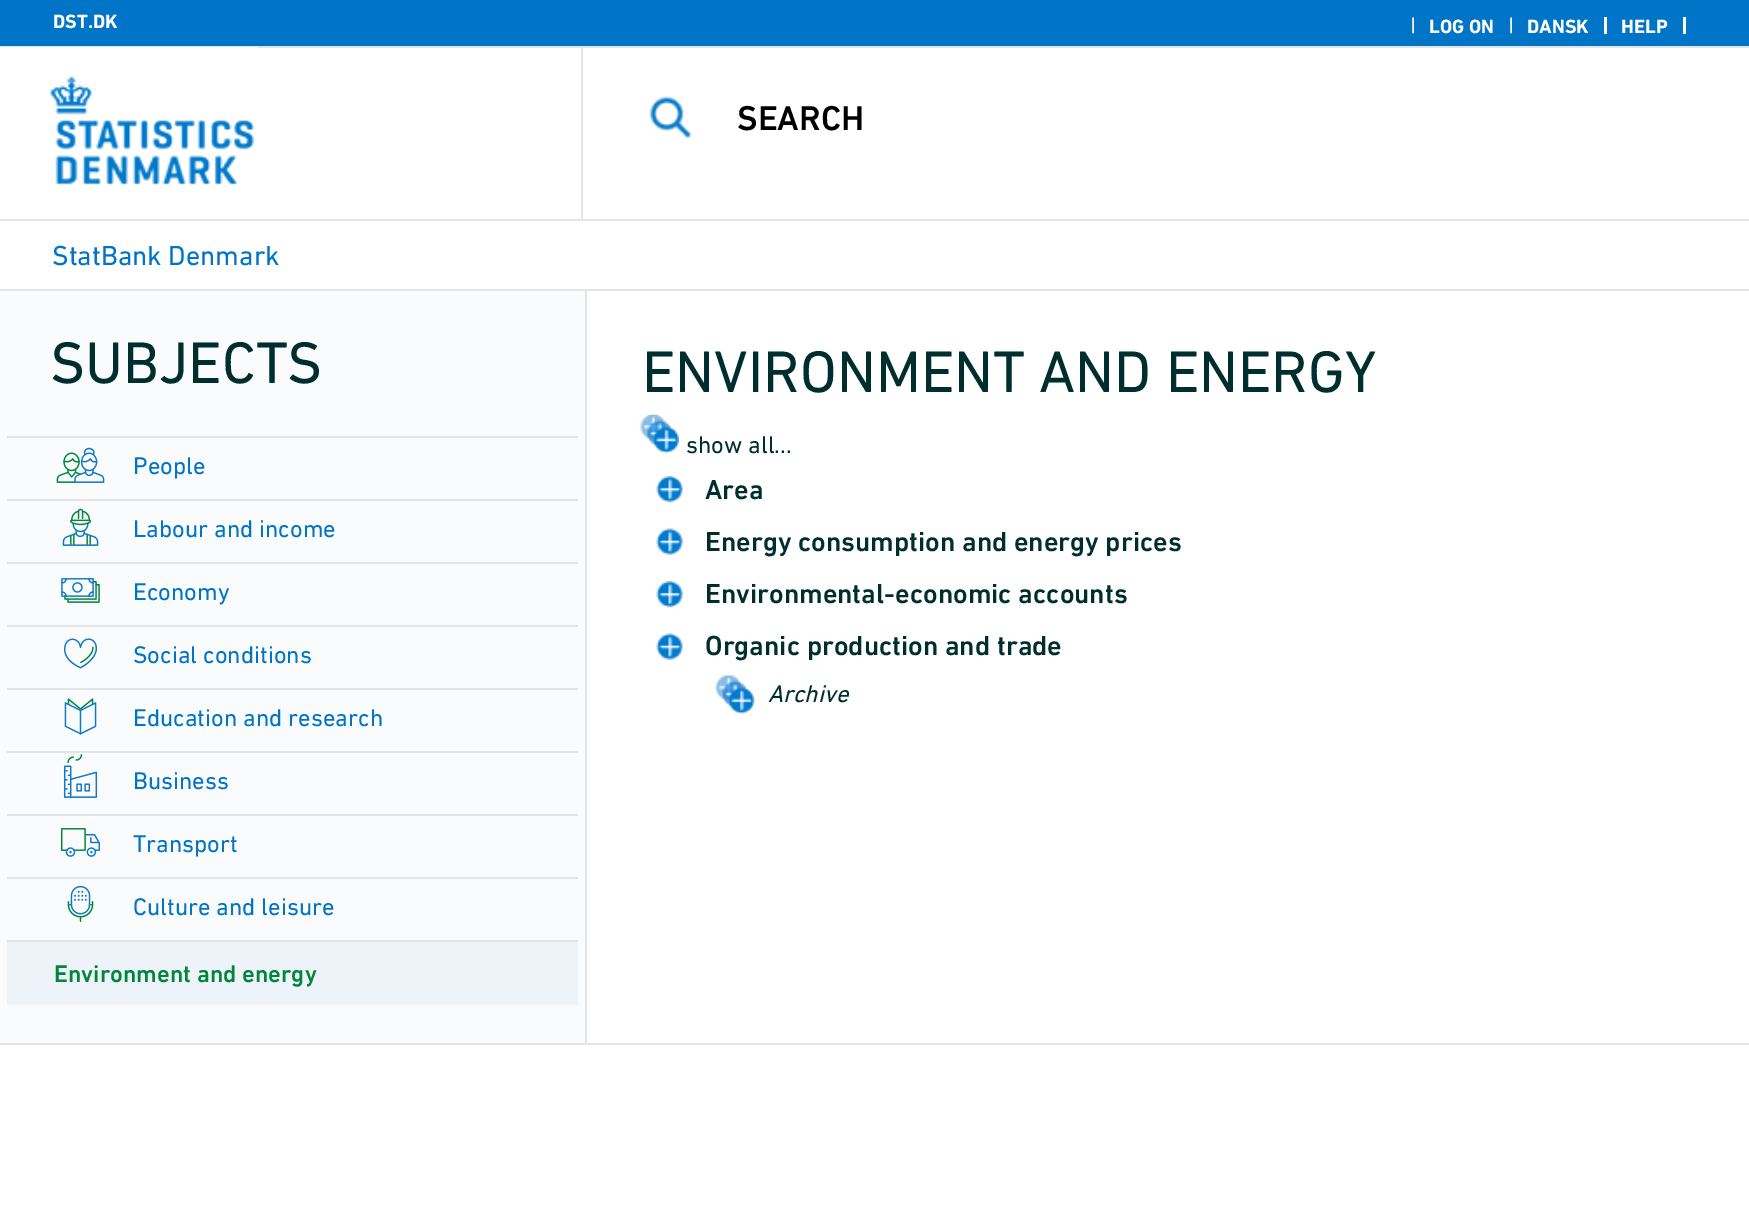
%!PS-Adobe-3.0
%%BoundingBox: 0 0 1749 1217
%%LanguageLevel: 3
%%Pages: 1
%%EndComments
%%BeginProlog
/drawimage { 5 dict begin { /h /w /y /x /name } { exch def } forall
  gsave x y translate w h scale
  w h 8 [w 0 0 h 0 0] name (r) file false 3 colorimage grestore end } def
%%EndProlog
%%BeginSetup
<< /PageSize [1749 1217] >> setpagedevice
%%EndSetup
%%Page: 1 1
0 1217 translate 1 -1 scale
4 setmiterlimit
1 setgray
0 0 1749 1217 rectfill
0 0.455 0.776 setrgbcolor
0 0 1749 46 rectfill
0.894 setgray
0 46 1749 2 rectfill
(images/1.raw) 0 47 258 170 drawimage
0 219 1749 2 rectfill
(images/2.raw) 1412 17 2 17 drawimage
(images/2.raw) 1510 17 2 17 drawimage
1 setgray
1604 17 3 17 rectfill
1683 17 3 17 rectfill
0.894 setgray
581 47 2 174 rectfill
(images/3.raw) 649 96 43 43 drawimage
0 289 1749 2 rectfill
0 1043 1749 2 rectfill
0.976 0.984 0.992 setrgbcolor
0 291 585 752 rectfill
0.894 setgray
585 291 2 754 rectfill
7 436 571 2 rectfill
(images/4.raw) 56 447 49 36 drawimage
7 499 571 2 rectfill
(images/5.raw) 62 508 37 38 drawimage
7 562 571 2 rectfill
(images/6.raw) 61 578 39 25 drawimage
7 625 571 2 rectfill
(images/7.raw) 64 638 34 31 drawimage
7 688 571 2 rectfill
(images/8.raw) 64 698 33 37 drawimage
7 751 571 2 rectfill
(images/9.raw) 63 754 35 44 drawimage
7 814 571 2 rectfill
(images/10.raw) 60 828 41 29 drawimage
7 877 571 2 rectfill
(images/11.raw) 67 885 27 37 drawimage
0.933 0.953 0.98 setrgbcolor
7 942 571 63 rectfill
0.894 setgray
7 940 571 2 rectfill
(images/12.raw) 640 414 39 40 drawimage
(images/13.raw) 656 476 27 27 drawimage
(images/14.raw) 656 528 27 27 drawimage
(images/13.raw) 656 581 27 27 drawimage
(images/14.raw) 656 633 27 27 drawimage
(images/15.raw) 715 675 40 39 drawimage
/DINNext-Bold [19.5 0 0 -19.5 0 0] selectfont
1 setgray
53 28 moveto (DST.DK) show
1429 33 moveto (LOG ON) show
1527 33 moveto (DANSK) show
1621 33 moveto (HELP) show
/DINNext-Medium [35 0 0 -35 0 0] selectfont
0 setgray
737 130 moveto (SEARCH) show
/DINNext-Regular [28 0 0 -28 0 0] selectfont
0 0.455 0.776 setrgbcolor
52 265 moveto (StatBank Denmark) show
/DINNext-Regular [59.5 0 0 -59.5 0 0] selectfont
0 0.18 0.18 setrgbcolor
50 383 moveto (SUBJECTS) show
/DINNext-Regular [24.5 0 0 -24.5 0 0] selectfont
0 0.455 0.776 setrgbcolor
133 474 moveto (People) show
133 537 moveto (Labour and income) show
133 600 moveto (Economy) show
133 663 moveto (Social conditions) show
133 726 moveto (Education and research) show
133 789 moveto (Business) show
133 852 moveto (Transport) show
133 915 moveto (Culture and leisure) show
/DINNext-Medium [24.5 0 0 -24.5 0 0] selectfont
0 0.525 0.231 setrgbcolor
54 982 moveto (Environment and energy) show
/DINNext-Regular [59.5 0 0 -59.5 0 0] selectfont
0 0.18 0.18 setrgbcolor
642 392 moveto (ENVIRONMENT AND ENERGY) show
/DINNext-Regular [24.5 0 0 -24.5 0 0] selectfont
686 453 moveto (show all...) show
/DINNext-Medium [28 0 0 -28 0 0] selectfont
705 499 moveto (Area) show
705 551 moveto (Energy consumption and energy prices) show
705 603 moveto (Environmental-economic accounts) show
705 655 moveto (Organic production and trade) show
/DINNext-Italic [24.5 0 0 -24.5 0 0] selectfont
768 702 moveto (Archive) show
showpage
%%EOF
